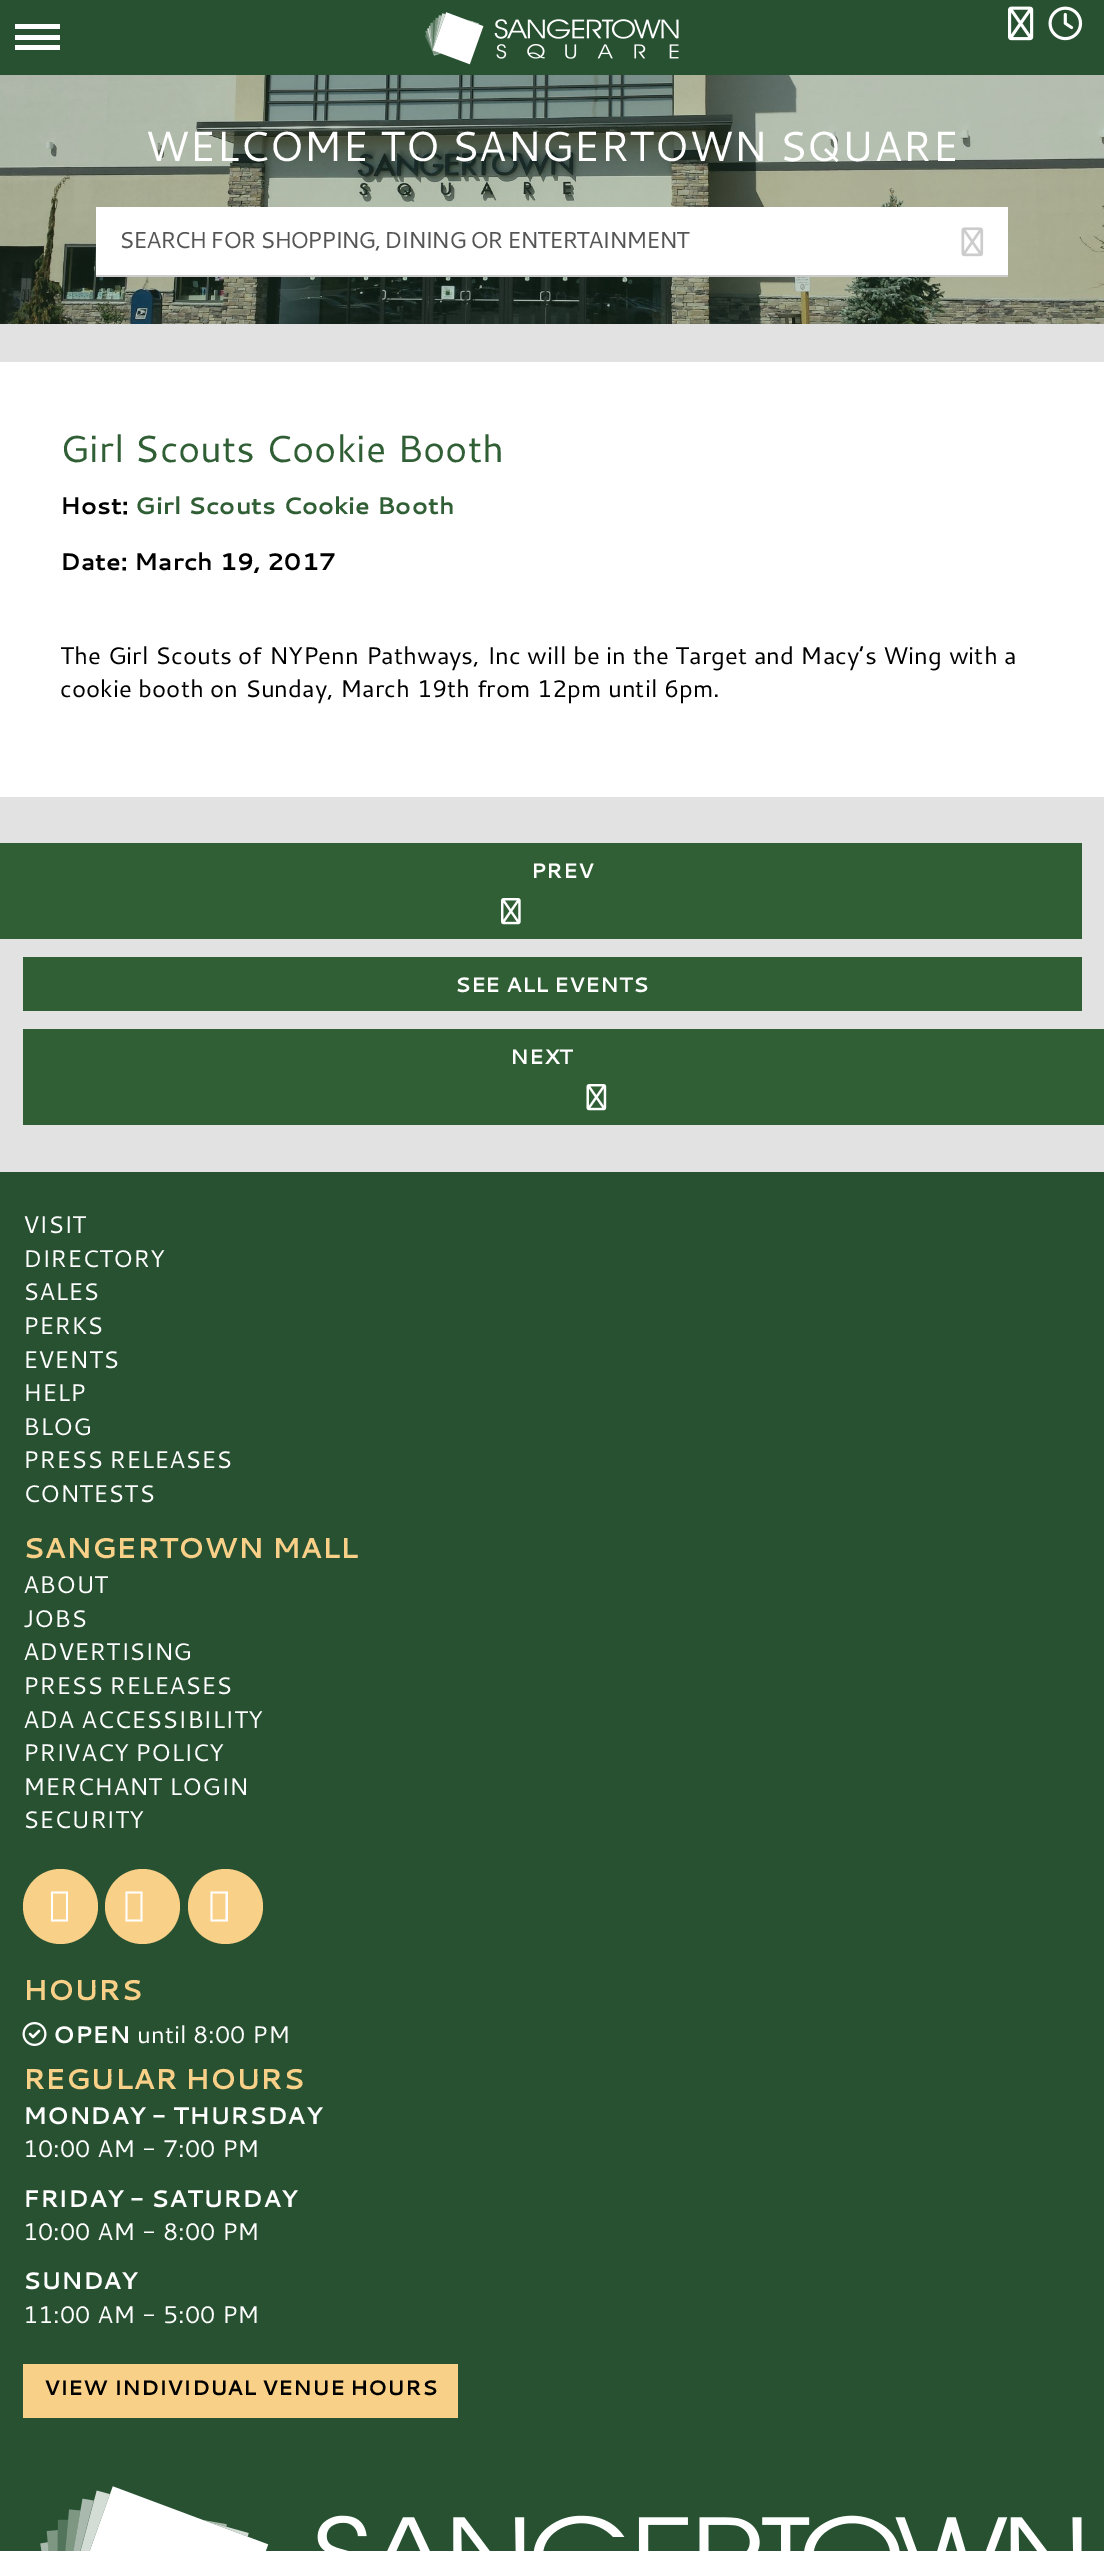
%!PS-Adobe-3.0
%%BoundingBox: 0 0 1104 2551
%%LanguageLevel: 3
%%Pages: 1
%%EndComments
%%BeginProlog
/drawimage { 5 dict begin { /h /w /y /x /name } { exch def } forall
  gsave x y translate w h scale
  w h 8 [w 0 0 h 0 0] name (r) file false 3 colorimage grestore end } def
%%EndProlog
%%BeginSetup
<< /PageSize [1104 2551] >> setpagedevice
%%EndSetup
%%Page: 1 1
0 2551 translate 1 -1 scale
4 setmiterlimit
0.886 setgray
0 0 1104 2551 rectfill
0.153 0.318 0.192 setrgbcolor
0 0 1104 75 rectfill
1 setgray
15 35 45 5 rectfill
15 24 45 5 rectfill
15 45 45 5 rectfill
(images/1.raw) 425 12 254 53 drawimage
(images/2.raw) 1008 6 26 35 drawimage
(images/3.raw) 1048 6 35 35 drawimage
(images/4.raw) 0 75 1104 249 drawimage
96 207 912 68 rectfill
0.8 setgray
96 275 912 2 rectfill
(images/5.raw) 961 227 23 30 drawimage
1 setgray
0 362 1104 435 rectfill
0.188 0.369 0.208 setrgbcolor
0 843 1082 96 rectfill
(images/6.raw) 501 898 20 27 drawimage
23 957 1059 54 rectfill
23 1029 1081 96 rectfill
(images/7.raw) 586 1084 21 27 drawimage
0.153 0.318 0.192 setrgbcolor
0 1172 1104 1379 rectfill
0.976 0.816 0.529 setrgbcolor
newpath 60.5 1906.5 37.5 0 360 arc closepath fill
1 setgray
newpath 51 1921.5 moveto 51 1891.5 lineto 68 1891.5 lineto 68 1921.5 lineto closepath 53 1919.5 moveto 66 1919.5 lineto 66 1893.5 lineto 53 1893.5 lineto closepath fill
0.976 0.816 0.529 setrgbcolor
newpath 142.5 1906.5 37.5 0 360 arc closepath fill
1 setgray
newpath 125.5 1921.5 moveto 125.5 1891.5 lineto 142.5 1891.5 lineto 142.5 1921.5 lineto closepath 127.5 1919.5 moveto 140.5 1919.5 lineto 140.5 1893.5 lineto 127.5 1893.5 lineto closepath fill
0.976 0.816 0.529 setrgbcolor
newpath 225.5 1906.5 37.5 0 360 arc closepath fill
1 setgray
newpath 210.5 1921.5 moveto 210.5 1891.5 lineto 228 1891.5 lineto 228 1921.5 lineto closepath 212.5 1919.5 moveto 225.5 1919.5 lineto 225.5 1893.5 lineto 212.5 1893.5 lineto closepath fill
(images/8.raw) 22 2022 25 24 drawimage
0.976 0.816 0.529 setrgbcolor
23 2364 435 54 rectfill
(images/9.raw) 40 2486 1042 65 drawimage
/Cantarell-Regular [42 0 0 -42 0 0] selectfont
1 setgray
145 161 moveto (WELCOME TO SANGERTOWN SQUARE) show
/Cantarell-Regular [23 0 0 -23 0 0] selectfont
0.333 setgray
119 248 moveto -1.5 0 (SEARCH FOR SHOPPING, DINING OR ENTERTAINMENT) ashow
/Cantarell-Regular [37.75 0 0 -37.75 0 0] selectfont
0.188 0.369 0.208 setrgbcolor
60 462 moveto (Girl Scouts Cookie Booth) show
/Cantarell-Bold [24 0 0 -24 0 0] selectfont
0 setgray
60 514 moveto (Host:) show
0.188 0.369 0.208 setrgbcolor
135 514 moveto (Girl Scouts Cookie Booth) show
0 setgray
60 570 moveto (Date: March 19, 2017) show
/Cantarell-Regular [24 0 0 -24 0 0] selectfont
60 664 moveto (The Girl Scouts of NYPenn Pathways, Inc will be in the Target and Macy’s Wing with a) show
60 697 moveto (cookie booth on Sunday, March 19th from 12pm until 6pm.) show
/Cantarell-Bold [21 0 0 -21 0 0] selectfont
1 setgray
531 878 moveto (PREV) show
455 992 moveto (SEE ALL EVENTS) show
510 1064 moveto (NEXT) show
/Cantarell-Regular [24 0 0 -24 0 0] selectfont
23 1233 moveto (VISIT) show
23 1267 moveto (DIRECTORY) show
23 1300 moveto (SALES) show
23 1334 moveto (PERKS) show
23 1368 moveto (EVENTS) show
23 1401 moveto (HELP) show
23 1435 moveto (BLOG) show
23 1468 moveto (PRESS RELEASES) show
23 1502 moveto (CONTESTS) show
/Cantarell-Bold [28.75 0 0 -28.75 0 0] selectfont
0.976 0.816 0.529 setrgbcolor
23 1558 moveto (SANGERTOWN MALL) show
/Cantarell-Regular [24 0 0 -24 0 0] selectfont
1 setgray
23 1593 moveto (ABOUT) show
23 1627 moveto (JOBS) show
23 1660 moveto (ADVERTISING) show
23 1694 moveto (PRESS RELEASES) show
23 1728 moveto (ADA ACCESSIBILITY) show
23 1761 moveto (PRIVACY POLICY) show
23 1795 moveto (MERCHANT LOGIN) show
23 1828 moveto (SECURITY) show
/Cantarell-Bold [28.75 0 0 -28.75 0 0] selectfont
0.976 0.816 0.529 setrgbcolor
23 2000 moveto (HOURS) show
/Cantarell-Bold [24 0 0 -24 0 0] selectfont
1 setgray
53 2043 moveto (OPEN) show
/Cantarell-Regular [24 0 0 -24 0 0] selectfont
137 2043 moveto (until 8:00 PM) show
/Cantarell-Bold [28.75 0 0 -28.75 0 0] selectfont
0.976 0.816 0.529 setrgbcolor
23 2089 moveto (REGULAR HOURS) show
/Cantarell-Bold [24 0 0 -24 0 0] selectfont
1 setgray
23 2124 moveto (MONDAY - THURSDAY) show
/Cantarell-Regular [24 0 0 -24 0 0] selectfont
23 2157 moveto (10:00 AM - 7:00 PM) show
/Cantarell-Bold [24 0 0 -24 0 0] selectfont
23 2207 moveto (FRIDAY - SATURDAY) show
/Cantarell-Regular [24 0 0 -24 0 0] selectfont
23 2240 moveto (10:00 AM - 8:00 PM) show
/Cantarell-Bold [24 0 0 -24 0 0] selectfont
23 2289 moveto (SUNDAY) show
/Cantarell-Regular [24 0 0 -24 0 0] selectfont
23 2323 moveto (11:00 AM - 5:00 PM) show
/Cantarell-Bold [21 0 0 -21 0 0] selectfont
0 setgray
44 2395 moveto (VIEW INDIVIDUAL VENUE HOURS) show
showpage
%%EOF
